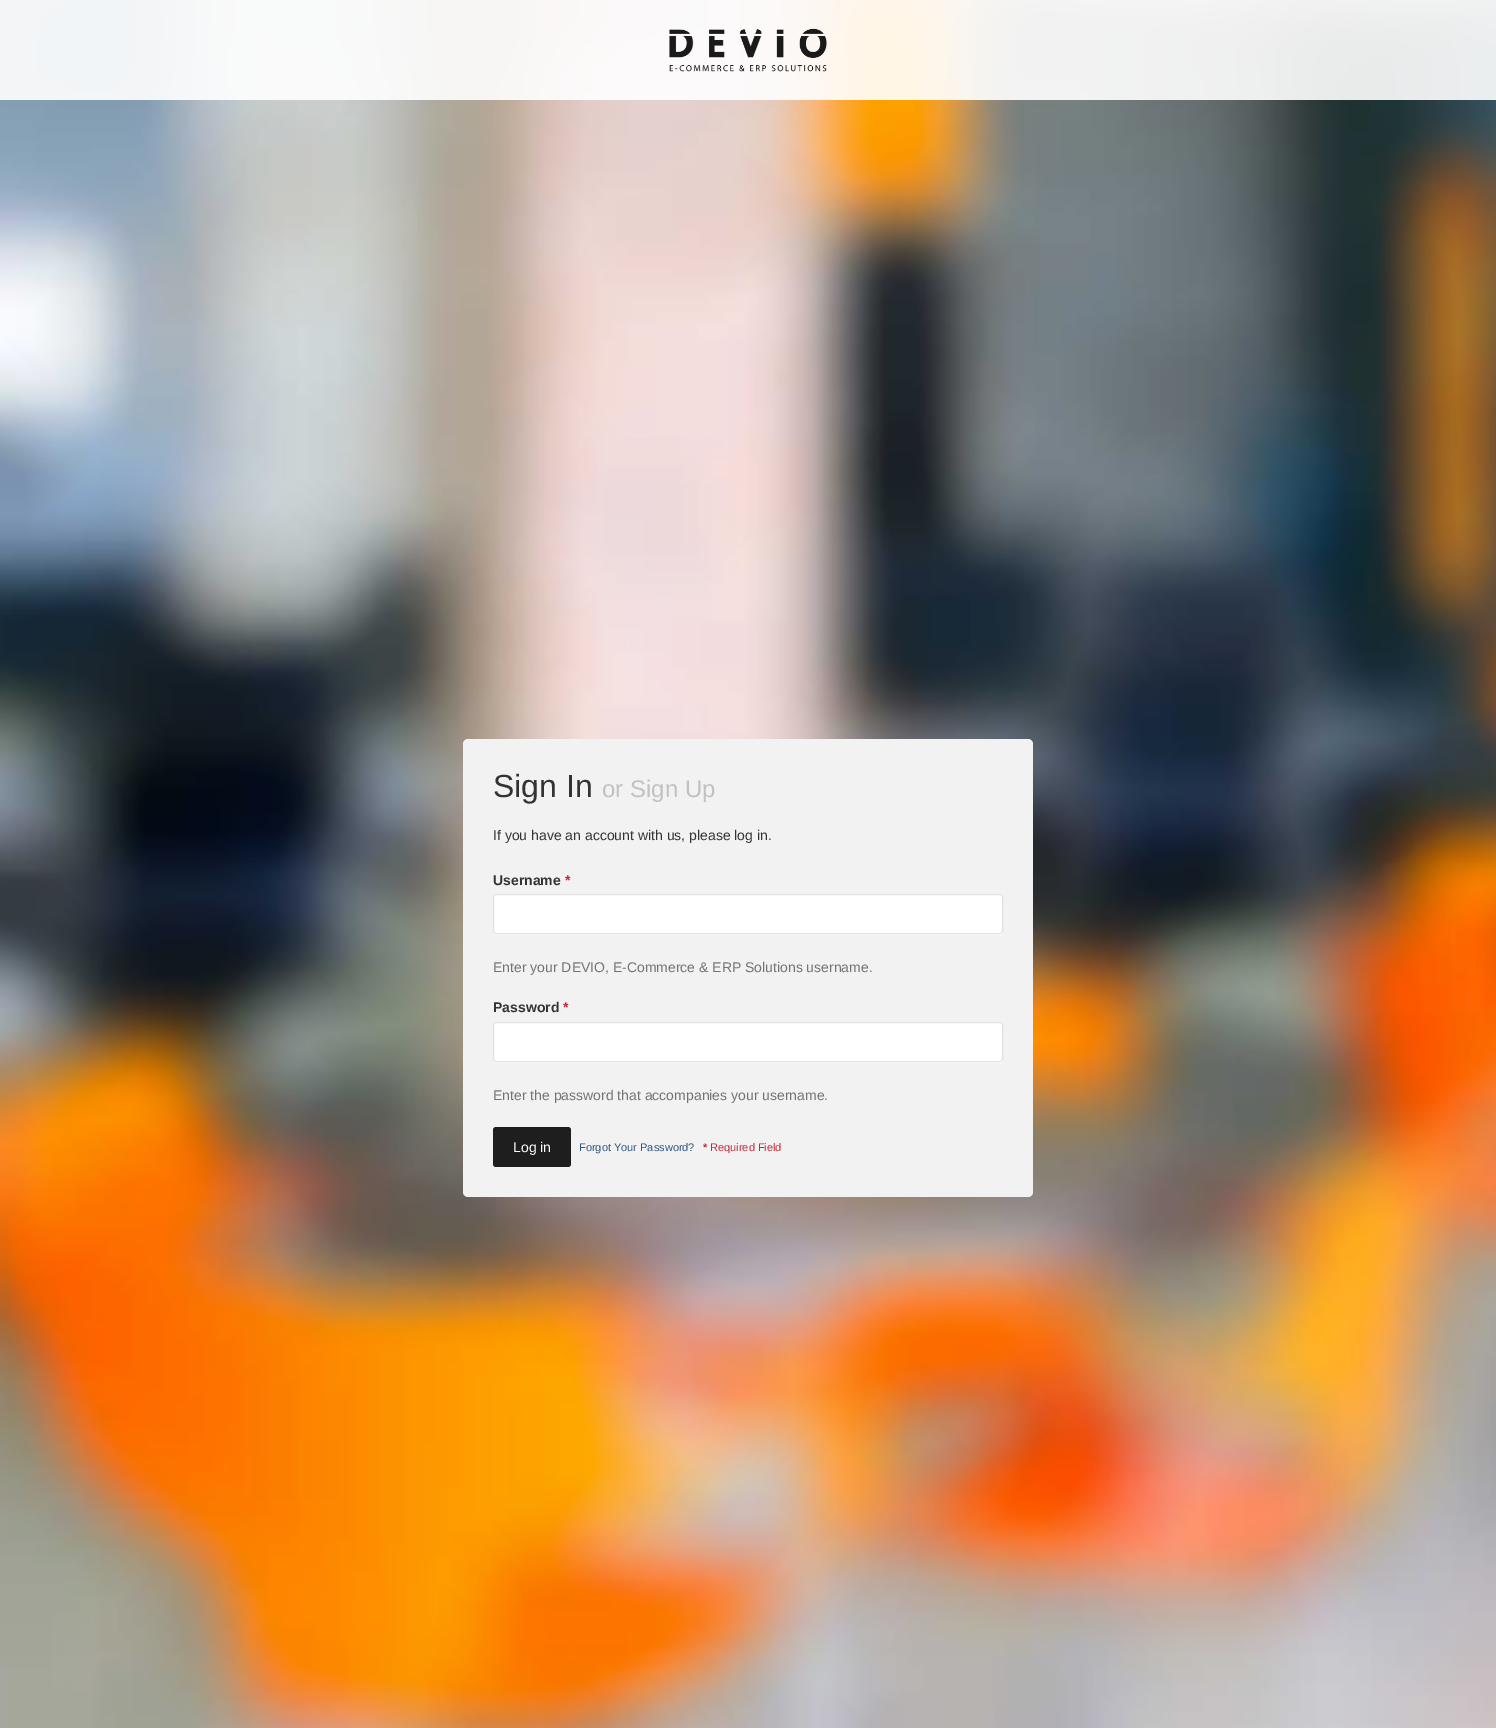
%!PS-Adobe-3.0
%%BoundingBox: 0 0 1496 1728
%%LanguageLevel: 3
%%Pages: 1
%%EndComments
%%BeginProlog
/setalpha { dup .setfillconstantalpha .setstrokeconstantalpha } def
/rrect { 5 dict begin { /r /h /w /y /x } { exch def } forall
  x r add y moveto x w add y 2 copy h add r arct x w add y h add x 1 index r arct
  x y h add x y r arct x y 2 copy exch w add exch r arct closepath end } def
/drawimage { 5 dict begin { /h /w /y /x /name } { exch def } forall
  gsave x y translate w h scale
  w h 8 [w 0 0 h 0 0] name (r) file false 3 colorimage grestore end } def
%%EndProlog
%%BeginSetup
<< /PageSize [1496 1728] /PageUsesTransparency true >> setpagedevice
%%EndSetup
%%Page: 1 1
0 .pushpdf14devicefilter
0 1728 translate 1 -1 scale
4 setmiterlimit
1 setgray
0 0 1496 1728 rectfill
(images/1.raw) 0 0 1496 1728 drawimage
0.9 setalpha
0 0 1496 100 rectfill
1 setalpha
(images/2.raw) 669 28 158 44 drawimage
0.949 setgray
463 739 570 458 5 rrect fill
1 setgray
newpath 493 931 moveto 493 933 lineto 495 935 lineto 1000 935 lineto 1002 935 1003 933 1003 931 curveto 1003 933 1002 934 1000 934 curveto 496 934 lineto 494 934 493 933 493 931 curveto closepath fill
493.5 894.5 509 39 2.5 rrect gsave fill grestore
0.882 setgray
stroke
1 setgray
newpath 493 1059 moveto 493 1061 lineto 495 1063 lineto 1000 1063 lineto 1002 1063 1003 1061 1003 1059 curveto 1003 1061 1002 1062 1000 1062 curveto 496 1062 lineto 494 1062 493 1061 493 1059 curveto closepath fill
493.5 1022.5 509 39 2.5 rrect gsave fill grestore
0.882 setgray
stroke
0.118 setgray
493 1127 78 40 3 rrect fill
/LiberationSans-Regular [32 0 0 -32 0 0] selectfont
0.2 setgray
493 797 moveto (Sign In) show
/LiberationSans-Regular [24 0 0 -24 0 0] selectfont
0.757 0.757 0.761 setrgbcolor
602 797 moveto (or Sign Up) show
/LiberationSans-Regular [14 0 0 -14 0 0] selectfont
0.2 setgray
493 840 moveto (If you have an account with us, please log in.) show
/LiberationSans-Bold [14 0 0 -14 0 0] selectfont
493 885 moveto (Username) show
0.765 0.161 0.227 setrgbcolor
565 885 moveto (*) show
/LiberationSans-Regular [14 0 0 -14 0 0] selectfont
0.451 setgray
493 972 moveto (Enter your DEVIO, E-Commerce & ERP Solutions username.) show
/LiberationSans-Bold [14 0 0 -14 0 0] selectfont
0.2 setgray
493 1012 moveto (Password) show
0.765 0.161 0.227 setrgbcolor
563 1012 moveto (*) show
/LiberationSans-Regular [14 0 0 -14 0 0] selectfont
0.451 setgray
493 1100 moveto (Enter the password that accompanies your username.) show
1 setgray
513 1152 moveto (Log in) show
/LiberationSans-Regular [11 0 0 -11 0 0] selectfont
0.18 0.329 0.506 setrgbcolor
579 1151 moveto (Forgot Your Password?) show
/LiberationSans-Bold [11 0 0 -11 0 0] selectfont
0.765 0.161 0.227 setrgbcolor
703 1151 moveto (*) show
/LiberationSans-Regular [11 0 0 -11 0 0] selectfont
710 1151 moveto (Required Field) show
.poppdf14devicefilter showpage
%%EOF
